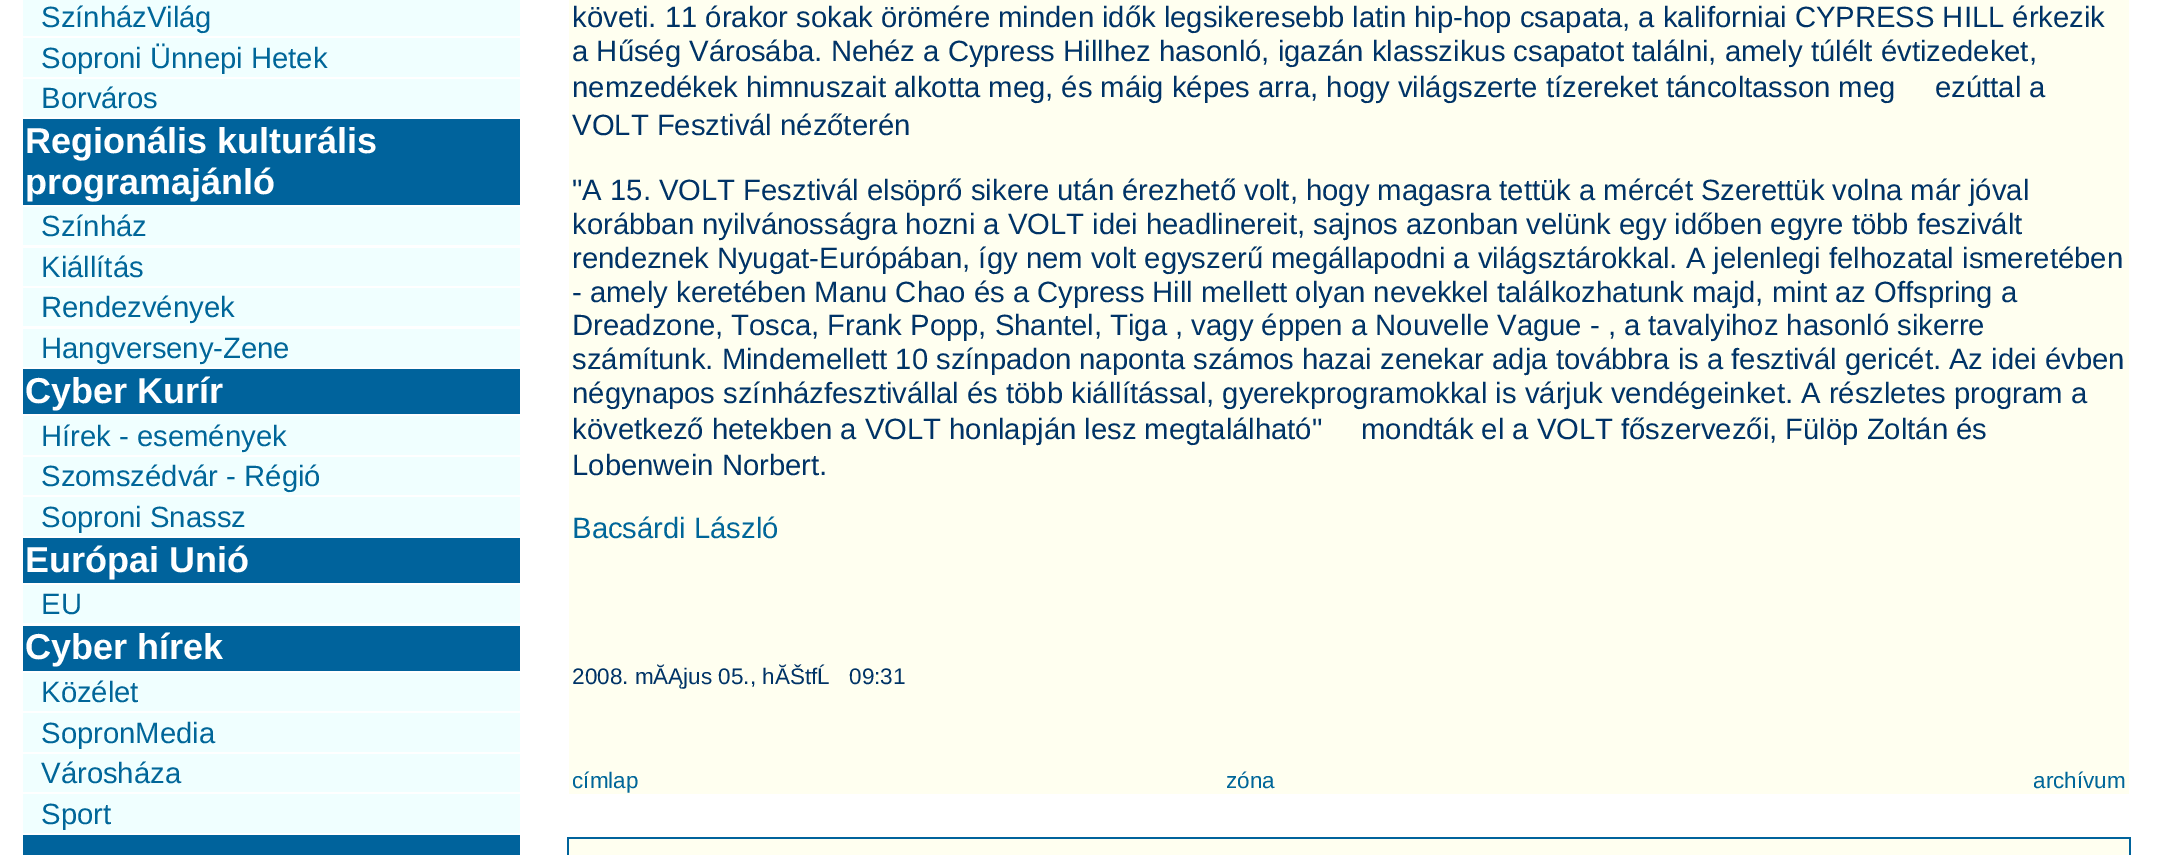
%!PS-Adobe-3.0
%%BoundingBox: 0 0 2167 855
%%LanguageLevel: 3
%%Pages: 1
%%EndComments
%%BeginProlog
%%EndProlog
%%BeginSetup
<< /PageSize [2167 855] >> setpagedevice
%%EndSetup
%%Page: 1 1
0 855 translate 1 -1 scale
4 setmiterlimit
1 setgray
0 0 2167 855 rectfill
0.941 1 1 setrgbcolor
23 0 497 36 rectfill
23 38 497 39 rectfill
23 79 497 38 rectfill
0 0.388 0.612 setrgbcolor
23 119 497 86 rectfill
0.941 1 1 setrgbcolor
23 207 497 38 rectfill
23 248 497 38 rectfill
23 288 497 38 rectfill
23 329 497 38 rectfill
0 0.388 0.612 setrgbcolor
23 369 497 45 rectfill
0.941 1 1 setrgbcolor
23 416 497 39 rectfill
23 457 497 38 rectfill
23 497 497 39 rectfill
0 0.388 0.612 setrgbcolor
23 538 497 45 rectfill
0.941 1 1 setrgbcolor
23 585 497 38 rectfill
0 0.388 0.612 setrgbcolor
23 626 497 45 rectfill
0.941 1 1 setrgbcolor
23 673 497 38 rectfill
23 713 497 39 rectfill
23 754 497 38 rectfill
23 794 497 39 rectfill
0 0.388 0.612 setrgbcolor
23 835 497 20 rectfill
1 1 0.941 setrgbcolor
569 0 1560 794 rectfill
0 0.388 0.612 setrgbcolor
567 837 1564 18 rectfill
1 1 0.941 setrgbcolor
569 839 1560 16 rectfill
/LiberationSans-Regular [29.25 0 0 -29.25 0 0] selectfont
0 0.4 0.6 setrgbcolor
41 27 moveto (SzínházVilág) show
41 68 moveto (Soproni Ünnepi Hetek) show
41 108 moveto (Borváros) show
/LiberationSans-Bold [36 0 0 -36 0 0] selectfont
1 setgray
25 153 moveto (Regionális kulturális) show
25 194 moveto (programajánló) show
/LiberationSans-Regular [29.25 0 0 -29.25 0 0] selectfont
0 0.4 0.6 setrgbcolor
41 236 moveto (Színház) show
41 277 moveto (Kiállítás) show
41 317 moveto (Rendezvények) show
41 358 moveto (Hangverseny-Zene) show
/LiberationSans-Bold [36 0 0 -36 0 0] selectfont
1 setgray
25 403 moveto (Cyber Kurír) show
/LiberationSans-Regular [29.25 0 0 -29.25 0 0] selectfont
0 0.4 0.6 setrgbcolor
41 446 moveto (Hírek - események) show
41 486 moveto (Szomszédvár - Régió) show
41 527 moveto (Soproni Snassz) show
/LiberationSans-Bold [36 0 0 -36 0 0] selectfont
1 setgray
25 572 moveto (Európai Unió) show
/LiberationSans-Regular [29.25 0 0 -29.25 0 0] selectfont
0 0.4 0.6 setrgbcolor
41 614 moveto (EU) show
/LiberationSans-Bold [36 0 0 -36 0 0] selectfont
1 setgray
25 659 moveto (Cyber hírek) show
/LiberationSans-Regular [29.25 0 0 -29.25 0 0] selectfont
0 0.4 0.6 setrgbcolor
41 702 moveto (Közélet) show
41 743 moveto (SopronMedia) show
41 783 moveto (Városháza) show
41 824 moveto (Sport) show
0 0.2 0.4 setrgbcolor
572 27 moveto (követi. 11 órakor sokak örömére minden idők legsikeresebb latin hip-hop csapata, a kaliforniai CYPRESS HILL érkezik) show
572 61 moveto (a Hűség Városába. Nehéz a Cypress Hillhez hasonló, igazán klasszikus csapatot találni, amely túlélt évtizedeket,) show
572 97 moveto (nemzedékek himnuszait alkotta meg, és máig képes arra, hogy világszerte tízereket táncoltasson meg) show
1935 97 moveto (ezúttal a) show
572 135 moveto (VOLT Fesztivál nézőterén) show
572 200 moveto ("A 15. VOLT Fesztivál elsöprő sikere után érezhető volt, hogy magasra tettük a mércét Szerettük volna már jóval) show
572 234 moveto (korábban nyilvánosságra hozni a VOLT idei headlinereit, sajnos azonban velünk egy időben egyre több feszivált) show
572 268 moveto (rendeznek Nyugat-Európában, így nem volt egyszerű megállapodni a világsztárokkal. A jelenlegi felhozatal ismeretében) show
572 302 moveto (- amely keretében Manu Chao és a Cypress Hill mellett olyan nevekkel találkozhatunk majd, mint az Offspring a) show
572 335 moveto (Dreadzone, Tosca, Frank Popp, Shantel, Tiga , vagy éppen a Nouvelle Vague - , a tavalyihoz hasonló sikerre) show
572 369 moveto (számítunk. Mindemellett 10 színpadon naponta számos hazai zenekar adja továbbra is a fesztivál gericét. Az idei évben) show
572 403 moveto (négynapos színházfesztivállal és több kiállítással, gyerekprogramokkal is várjuk vendégeinket. A részletes program a) show
572 439 moveto (következő hetekben a VOLT honlapján lesz megtalálható") show
1361 439 moveto (mondták el a VOLT főszervezői, Fülöp Zoltán és) show
572 475 moveto (Lobenwein Norbert.) show
0 0.4 0.6 setrgbcolor
572 538 moveto (Bacsárdi László) show
/LiberationSans-Regular [22.5 0 0 -22.5 0 0] selectfont
0 0.2 0.4 setrgbcolor
572 684 moveto (2008. mĂĄjus 05., hĂŠtfĹ) show
849 684 moveto (09:31) show
0 0.4 0.6 setrgbcolor
572 788 moveto (címlap) show
1226 788 moveto (zóna) show
2033 788 moveto (archívum) show
showpage
%%EOF
